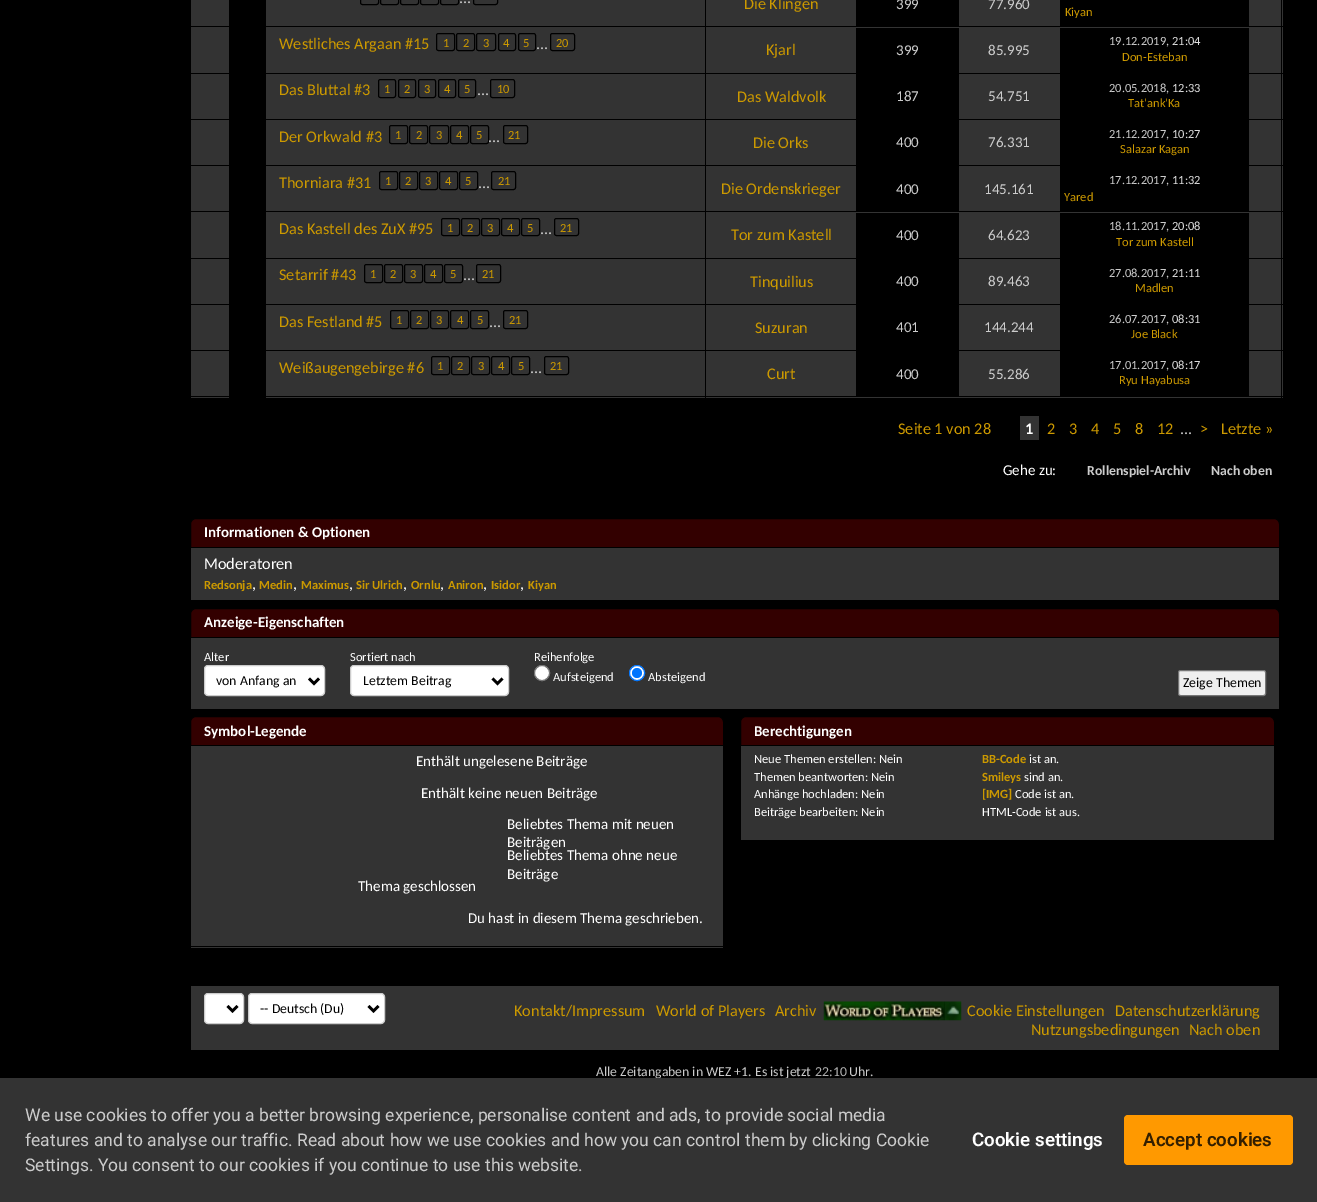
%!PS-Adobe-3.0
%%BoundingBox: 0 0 1317 1202
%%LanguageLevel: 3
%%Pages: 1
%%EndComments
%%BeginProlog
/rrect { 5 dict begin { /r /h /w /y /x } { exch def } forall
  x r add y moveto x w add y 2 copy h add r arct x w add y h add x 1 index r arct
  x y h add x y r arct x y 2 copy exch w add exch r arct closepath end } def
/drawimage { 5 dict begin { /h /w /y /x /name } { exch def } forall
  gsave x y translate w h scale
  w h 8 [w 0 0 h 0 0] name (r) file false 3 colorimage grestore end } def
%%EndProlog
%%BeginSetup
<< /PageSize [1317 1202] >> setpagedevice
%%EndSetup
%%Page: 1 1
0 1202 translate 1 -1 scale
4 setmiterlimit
0 setgray
0 0 1317 1202 rectfill
0.2 setgray
191 0 1092 73 rectfill
0 setgray
1281 0 1 74 rectfill
190 26 1093 1 rectfill
229 0 37 73 rectfill
360.5 -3.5 18 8 2 rrect stroke
380.5 -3.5 18 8 2 rrect stroke
400.5 -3.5 18 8 2 rrect stroke
420.5 -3.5 18 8 2 rrect stroke
440.5 -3.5 18 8 2 rrect stroke
473.5 -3.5 24 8 2 rrect stroke
705 0 1 74 rectfill
856 0 103 26 rectfill
1060 0 189 26 rectfill
436.5 33.5 18 17 2 rrect stroke
456.5 33.5 18 17 2 rrect stroke
476.5 33.5 19 17 2 rrect stroke
498.5 33.5 17 17 2 rrect stroke
518.5 33.5 17 17 2 rrect stroke
550.5 33.5 24 17 2 rrect stroke
856 28 103 45 rectfill
1060 28 189 45 rectfill
0.2 setgray
191 74 1092 45 rectfill
0 setgray
1281 74 1 46 rectfill
229 74 37 45 rectfill
378.5 79.5 17 18 2 rrect stroke
398.5 79.5 17 18 2 rrect stroke
418.5 79.5 17 18 2 rrect stroke
438.5 79.5 17 18 2 rrect stroke
458.5 79.5 17 18 2 rrect stroke
490.5 79.5 24 18 2 rrect stroke
705 74 1 46 rectfill
856 74 103 45 rectfill
1060 74 189 45 rectfill
0.2 setgray
191 120 1092 45 rectfill
0 setgray
1281 120 1 46 rectfill
229 120 37 45 rectfill
389.5 125.5 18 18 2 rrect stroke
409.5 125.5 18 18 2 rrect stroke
429.5 125.5 19 18 2 rrect stroke
450.5 125.5 18 18 2 rrect stroke
470.5 125.5 18 18 2 rrect stroke
503.5 125.5 24 18 2 rrect stroke
705 120 1 46 rectfill
856 120 103 45 rectfill
1060 120 189 45 rectfill
0.2 setgray
191 166 1092 92 rectfill
0 setgray
1281 166 1 93 rectfill
190 211 1093 1 rectfill
229 166 37 92 rectfill
379.5 171.5 18 18 2 rrect stroke
399.5 171.5 18 18 2 rrect stroke
419.5 171.5 18 18 2 rrect stroke
439.5 171.5 18 18 2 rrect stroke
459.5 171.5 18 18 2 rrect stroke
491.5 171.5 24 18 2 rrect stroke
705 166 1 93 rectfill
856 166 103 45 rectfill
1060 166 189 45 rectfill
441.5 218.5 18 17 2 rrect stroke
461.5 218.5 18 17 2 rrect stroke
481.5 218.5 18 17 2 rrect stroke
501.5 218.5 18 17 2 rrect stroke
521.5 218.5 18 17 2 rrect stroke
554.5 218.5 24 17 2 rrect stroke
856 213 103 45 rectfill
1060 213 189 45 rectfill
0.2 setgray
191 259 1092 45 rectfill
0 setgray
1281 259 1 46 rectfill
229 259 37 45 rectfill
364.5 264.5 18 18 2 rrect stroke
384.5 264.5 18 18 2 rrect stroke
404.5 264.5 18 18 2 rrect stroke
424.5 264.5 18 18 2 rrect stroke
444.5 264.5 18 18 2 rrect stroke
476.5 264.5 24 18 2 rrect stroke
705 259 1 46 rectfill
856 259 103 45 rectfill
1060 259 189 45 rectfill
0.2 setgray
191 305 1092 45 rectfill
0 setgray
1281 305 1 46 rectfill
229 305 37 45 rectfill
390.5 310.5 18 18 2 rrect stroke
410.5 310.5 18 18 2 rrect stroke
430.5 310.5 18 18 2 rrect stroke
450.5 310.5 18 18 2 rrect stroke
470.5 310.5 18 18 2 rrect stroke
503.5 310.5 24 18 2 rrect stroke
705 305 1 46 rectfill
856 305 103 45 rectfill
1060 305 189 45 rectfill
0.2 setgray
191 351 1092 47 rectfill
0 setgray
1281 351 1 47 rectfill
190 396 1093 1 rectfill
229 351 37 47 rectfill
431.5 356.5 18 18 2 rrect stroke
451.5 356.5 18 18 2 rrect stroke
471.5 356.5 18 18 2 rrect stroke
491.5 356.5 18 18 2 rrect stroke
511.5 356.5 18 18 2 rrect stroke
544.5 356.5 24 18 2 rrect stroke
705 351 1 47 rectfill
856 351 103 45 rectfill
1060 351 189 45 rectfill
0.2 setgray
1020 416 19 24 rectfill
0.2 0 0 setrgbcolor
newpath 196 518.5 moveto 1274 518.5 lineto 1277 518.5 1279.5 521 1279.5 524 curveto 1279.5 547.5 lineto 190.5 547.5 lineto 190.5 524 lineto 190.5 521 193 518.5 196 518.5 curveto closepath gsave fill grestore
0 setgray
stroke
0.2 setgray
191 548 1088 52 rectfill
0.2 0 0 setrgbcolor
newpath 196 608.5 moveto 1274 608.5 lineto 1277 608.5 1279.5 611 1279.5 614 curveto 1279.5 637.5 lineto 190.5 637.5 lineto 190.5 614 lineto 190.5 611 193 608.5 196 608.5 curveto closepath gsave fill grestore
0 setgray
stroke
0.2 setgray
191 638 1088 71 rectfill
1 setgray
204.5 665.5 120 30 3.5 rrect gsave fill grestore
0.8 setgray
stroke
0 setgray
2.5 setlinewidth
newpath 309 678.5 moveto 314 683.5 lineto 319 678.5 lineto stroke
1 setgray
350.5 665.5 158 30 3.5 rrect gsave fill grestore
0.8 setgray
1 setlinewidth
stroke
0 setgray
2.5 setlinewidth
newpath 492.5 678.5 moveto 497.5 683.5 lineto 502.5 678.5 lineto stroke
1 setgray
newpath 542 673 7.5 0 360 arc closepath gsave fill grestore
0.463 setgray
1 setlinewidth
stroke
1 setgray
newpath 637 673 7.5 0 360 arc closepath gsave fill grestore
0 0.459 1 setrgbcolor
stroke
newpath 637 673 5 0 360 arc closepath fill
0.937 setgray
1178.5 670.5 87 25 2 rrect gsave fill grestore
0.463 setgray
stroke
0.2 0 0 setrgbcolor
newpath 196 716.5 moveto 718 716.5 lineto 721 716.5 723.5 719 723.5 722 curveto 723.5 745.5 lineto 190.5 745.5 lineto 190.5 722 lineto 190.5 719 193 716.5 196 716.5 curveto closepath gsave fill grestore
0 setgray
stroke
0.2 setgray
191 746 532 202 rectfill
0 setgray
190 946 534 1 rectfill
0.2 0 0 setrgbcolor
newpath 746 716.5 moveto 1269 716.5 lineto 1272 716.5 1274.5 719 1274.5 722 curveto 1274.5 745.5 lineto 740.5 745.5 lineto 740.5 722 lineto 740.5 719 743 716.5 746 716.5 curveto closepath gsave fill grestore
0 setgray
stroke
0.2 setgray
741 746 533 94 rectfill
191 986 1088 64 rectfill
1 setgray
204.5 993.5 39 30 3.5 rrect gsave fill grestore
0.8 setgray
stroke
0 setgray
2.5 setlinewidth
newpath 227.5 1006 moveto 232.5 1011 lineto 237.5 1006 lineto stroke
1 setgray
248.5 993.5 136 30 3.5 rrect gsave fill grestore
0.8 setgray
1 setlinewidth
stroke
0 setgray
2.5 setlinewidth
newpath 368.5 1006 moveto 373.5 1011 lineto 378.5 1006 lineto stroke
(images/1.raw) 823 1001 139 20 drawimage
/Carlito-Regular [16.25 0 0 -16.25 0 0] selectfont
0.8 setgray
459 3 moveto (...) show
0.8 0.6 0 setrgbcolor
744 9 moveto (Die Klingen) show
/Carlito-Regular [15 0 0 -15 0 0] selectfont
0.8 setgray
896 9 moveto (399) show
988 9 moveto (77.960) show
/Carlito-Regular [12.5 0 0 -12.5 0 0] selectfont
0.8 0.6 0 setrgbcolor
1065 16 moveto (Kiyan) show
/Carlito-Regular [16.25 0 0 -16.25 0 0] selectfont
279 49 moveto (Westliches Argaan #15) show
/Carlito-Regular [12.5 0 0 -12.5 0 0] selectfont
443 47 moveto (1) show
463 47 moveto (2) show
483 47 moveto (3) show
503 47 moveto (4) show
523 47 moveto (5) show
556 47 moveto (20) show
/Carlito-Regular [16.25 0 0 -16.25 0 0] selectfont
0.8 setgray
536 49 moveto (...) show
0.8 0.6 0 setrgbcolor
766 55 moveto (Kjarl) show
/Carlito-Regular [15 0 0 -15 0 0] selectfont
0.8 setgray
896 55 moveto (399) show
988 55 moveto (85.995) show
/Carlito-Regular [12.5 0 0 -12.5 0 0] selectfont
1109 45 moveto (19.12.2019,) show
0.867 setgray
1172 45 moveto (21:04) show
0.8 0.6 0 setrgbcolor
1122 61 moveto (Don-Esteban) show
/Carlito-Regular [16.25 0 0 -16.25 0 0] selectfont
279 95 moveto (Das Bluttal #3) show
/Carlito-Regular [12.5 0 0 -12.5 0 0] selectfont
384 93 moveto (1) show
404 93 moveto (2) show
424 93 moveto (3) show
444 93 moveto (4) show
464 93 moveto (5) show
497 93 moveto (10) show
/Carlito-Regular [16.25 0 0 -16.25 0 0] selectfont
0.8 setgray
477 95 moveto (...) show
0.8 0.6 0 setrgbcolor
737 102 moveto (Das Waldvolk) show
/Carlito-Regular [15 0 0 -15 0 0] selectfont
0.8 setgray
896 101 moveto (187) show
988 101 moveto (54.751) show
/Carlito-Regular [12.5 0 0 -12.5 0 0] selectfont
1109 92 moveto (20.05.2018,) show
0.867 setgray
1172 92 moveto (12:33) show
0.8 0.6 0 setrgbcolor
1128 107 moveto (Tat'ank'Ka) show
/Carlito-Regular [16.25 0 0 -16.25 0 0] selectfont
279 142 moveto (Der Orkwald #3) show
/Carlito-Regular [12.5 0 0 -12.5 0 0] selectfont
395 139 moveto (1) show
416 139 moveto (2) show
436 139 moveto (3) show
456 139 moveto (4) show
476 139 moveto (5) show
508 139 moveto (21) show
/Carlito-Regular [16.25 0 0 -16.25 0 0] selectfont
0.8 setgray
488 142 moveto (...) show
0.8 0.6 0 setrgbcolor
753 148 moveto (Die Orks) show
/Carlito-Regular [15 0 0 -15 0 0] selectfont
0.8 setgray
896 147 moveto (400) show
988 147 moveto (76.331) show
/Carlito-Regular [12.5 0 0 -12.5 0 0] selectfont
1109 138 moveto (21.12.2017,) show
0.867 setgray
1172 138 moveto (10:27) show
0.8 0.6 0 setrgbcolor
1120 153 moveto (Salazar Kagan) show
/Carlito-Regular [16.25 0 0 -16.25 0 0] selectfont
279 188 moveto (Thorniara #31) show
/Carlito-Regular [12.5 0 0 -12.5 0 0] selectfont
385 185 moveto (1) show
405 185 moveto (2) show
425 185 moveto (3) show
445 185 moveto (4) show
465 185 moveto (5) show
498 185 moveto (21) show
/Carlito-Regular [16.25 0 0 -16.25 0 0] selectfont
0.8 setgray
478 188 moveto (...) show
0.8 0.6 0 setrgbcolor
721 194 moveto (Die Ordenskrieger) show
/Carlito-Regular [15 0 0 -15 0 0] selectfont
0.8 setgray
896 194 moveto (400) show
984 194 moveto (145.161) show
/Carlito-Regular [12.5 0 0 -12.5 0 0] selectfont
1109 184 moveto (17.12.2017,) show
0.867 setgray
1172 184 moveto (11:32) show
0.8 0.6 0 setrgbcolor
1064 201 moveto (Yared) show
/Carlito-Regular [16.25 0 0 -16.25 0 0] selectfont
279 234 moveto (Das Kastell des ZuX #95) show
/Carlito-Regular [12.5 0 0 -12.5 0 0] selectfont
447 232 moveto (1) show
467 232 moveto (2) show
487 232 moveto (3) show
507 232 moveto (4) show
527 232 moveto (5) show
560 232 moveto (21) show
/Carlito-Regular [16.25 0 0 -16.25 0 0] selectfont
0.8 setgray
540 234 moveto (...) show
0.8 0.6 0 setrgbcolor
731 240 moveto (Tor zum Kastell) show
/Carlito-Regular [15 0 0 -15 0 0] selectfont
0.8 setgray
896 240 moveto (400) show
988 240 moveto (64.623) show
/Carlito-Regular [12.5 0 0 -12.5 0 0] selectfont
1109 230 moveto (18.11.2017,) show
0.867 setgray
1172 230 moveto (20:08) show
0.8 0.6 0 setrgbcolor
1116 246 moveto (Tor zum Kastell) show
/Carlito-Regular [16.25 0 0 -16.25 0 0] selectfont
279 280 moveto (Setarrif #43) show
/Carlito-Regular [12.5 0 0 -12.5 0 0] selectfont
370 278 moveto (1) show
390 278 moveto (2) show
410 278 moveto (3) show
430 278 moveto (4) show
450 278 moveto (5) show
482 278 moveto (21) show
/Carlito-Regular [16.25 0 0 -16.25 0 0] selectfont
0.8 setgray
463 280 moveto (...) show
0.8 0.6 0 setrgbcolor
750 287 moveto (Tinquilius) show
/Carlito-Regular [15 0 0 -15 0 0] selectfont
0.8 setgray
896 286 moveto (400) show
988 286 moveto (89.463) show
/Carlito-Regular [12.5 0 0 -12.5 0 0] selectfont
1109 277 moveto (27.08.2017,) show
0.867 setgray
1172 277 moveto (21:11) show
0.8 0.6 0 setrgbcolor
1135 292 moveto (Madlen) show
/Carlito-Regular [16.25 0 0 -16.25 0 0] selectfont
279 327 moveto (Das Festland #5) show
/Carlito-Regular [12.5 0 0 -12.5 0 0] selectfont
396 324 moveto (1) show
416 324 moveto (2) show
436 324 moveto (3) show
457 324 moveto (4) show
477 324 moveto (5) show
509 324 moveto (21) show
/Carlito-Regular [16.25 0 0 -16.25 0 0] selectfont
0.8 setgray
489 327 moveto (...) show
0.8 0.6 0 setrgbcolor
755 333 moveto (Suzuran) show
/Carlito-Regular [15 0 0 -15 0 0] selectfont
0.8 setgray
896 332 moveto (401) show
984 332 moveto (144.244) show
/Carlito-Regular [12.5 0 0 -12.5 0 0] selectfont
1109 323 moveto (26.07.2017,) show
0.867 setgray
1172 323 moveto (08:31) show
0.8 0.6 0 setrgbcolor
1131 338 moveto (Joe Black) show
/Carlito-Regular [16.25 0 0 -16.25 0 0] selectfont
279 373 moveto (Weißaugengebirge #6) show
/Carlito-Regular [12.5 0 0 -12.5 0 0] selectfont
437 370 moveto (1) show
457 370 moveto (2) show
478 370 moveto (3) show
498 370 moveto (4) show
518 370 moveto (5) show
550 370 moveto (21) show
/Carlito-Regular [16.25 0 0 -16.25 0 0] selectfont
0.8 setgray
530 373 moveto (...) show
0.8 0.6 0 setrgbcolor
767 379 moveto (Curt) show
/Carlito-Regular [15 0 0 -15 0 0] selectfont
0.8 setgray
896 379 moveto (400) show
988 379 moveto (55.286) show
/Carlito-Regular [12.5 0 0 -12.5 0 0] selectfont
1109 369 moveto (17.01.2017,) show
0.867 setgray
1172 369 moveto (08:17) show
0.8 0.6 0 setrgbcolor
1119 384 moveto (Ryu Hayabusa) show
/Carlito-Regular [16.25 0 0 -16.25 0 0] selectfont
898 434 moveto (Seite 1 von 28) show
/Carlito-Bold [16.25 0 0 -16.25 0 0] selectfont
1 setgray
1025 434 moveto (1) show
/Carlito-Regular [16.25 0 0 -16.25 0 0] selectfont
0.8 0.6 0 setrgbcolor
1047 434 moveto (2) show
1069 434 moveto (3) show
1091 434 moveto (4) show
1113 434 moveto (5) show
1135 434 moveto (8) show
1157 434 moveto (12) show
1200 434 moveto (>) show
1221 434 moveto (Letzte ») show
0.8 setgray
1180 434 moveto (...) show
/Carlito-Regular [15 0 0 -15 0 0] selectfont
1 setgray
1003 475 moveto (Gehe zu:) show
/Carlito-Bold [13.75 0 0 -13.75 0 0] selectfont
0.8 setgray
1087 475 moveto (Rollenspiel-Archiv) show
1211 475 moveto (Nach oben) show
/Carlito-Bold [15 0 0 -15 0 0] selectfont
1 setgray
204 537 moveto (Informationen & Optionen) show
/Carlito-Regular [16.25 0 0 -16.25 0 0] selectfont
204 569 moveto (Moderatoren) show
/Carlito-Bold [12.5 0 0 -12.5 0 0] selectfont
0.8 0.6 0 setrgbcolor
204 589 moveto (Redsonja) show
/Carlito-Regular [16.25 0 0 -16.25 0 0] selectfont
1 setgray
252 589 moveto (,) show
/Carlito-Bold [12.5 0 0 -12.5 0 0] selectfont
0.8 0.6 0 setrgbcolor
259 589 moveto (Medin) show
/Carlito-Regular [16.25 0 0 -16.25 0 0] selectfont
1 setgray
293 589 moveto (,) show
/Carlito-Bold [12.5 0 0 -12.5 0 0] selectfont
0.8 0.6 0 setrgbcolor
301 589 moveto (Maximus) show
/Carlito-Regular [16.25 0 0 -16.25 0 0] selectfont
1 setgray
349 589 moveto (,) show
/Carlito-Bold [12.5 0 0 -12.5 0 0] selectfont
0.8 0.6 0 setrgbcolor
356 589 moveto (Sir Ulrich) show
/Carlito-Regular [16.25 0 0 -16.25 0 0] selectfont
1 setgray
403 589 moveto (,) show
/Carlito-Bold [12.5 0 0 -12.5 0 0] selectfont
0.8 0.6 0 setrgbcolor
411 589 moveto (Ornlu) show
/Carlito-Regular [16.25 0 0 -16.25 0 0] selectfont
1 setgray
440 589 moveto (,) show
/Carlito-Bold [12.5 0 0 -12.5 0 0] selectfont
0.8 0.6 0 setrgbcolor
448 589 moveto (Aniron) show
/Carlito-Regular [16.25 0 0 -16.25 0 0] selectfont
1 setgray
483 589 moveto (,) show
/Carlito-Bold [12.5 0 0 -12.5 0 0] selectfont
0.8 0.6 0 setrgbcolor
491 589 moveto (Isidor) show
/Carlito-Regular [16.25 0 0 -16.25 0 0] selectfont
1 setgray
520 589 moveto (,) show
/Carlito-Bold [12.5 0 0 -12.5 0 0] selectfont
0.8 0.6 0 setrgbcolor
528 589 moveto (Kiyan) show
/Carlito-Bold [15 0 0 -15 0 0] selectfont
1 setgray
204 627 moveto (Anzeige-Eigenschaften) show
/Carlito-Regular [12.5 0 0 -12.5 0 0] selectfont
204 661 moveto (Alter) show
/Carlito-Regular [13.75 0 0 -13.75 0 0] selectfont
0 setgray
216 685 moveto (von Anfang an) show
/Carlito-Regular [12.5 0 0 -12.5 0 0] selectfont
1 setgray
350 661 moveto (Sortiert nach) show
/Carlito-Regular [13.75 0 0 -13.75 0 0] selectfont
0 setgray
363 685 moveto (Letztem Beitrag) show
/Carlito-Regular [12.5 0 0 -12.5 0 0] selectfont
1 setgray
534 661 moveto (Reihenfolge) show
553 681 moveto (Aufsteigend) show
648 681 moveto (Absteigend) show
/Carlito-Regular [13.75 0 0 -13.75 0 0] selectfont
0 setgray
1183 687 moveto (Zeige Themen) show
/Carlito-Bold [15 0 0 -15 0 0] selectfont
1 setgray
204 736 moveto (Symbol-Legende) show
/Carlito-Regular [15 0 0 -15 0 0] selectfont
416 766 moveto (Enthält ungelesene Beiträge) show
421 798 moveto (Enthält keine neuen Beiträge) show
507 829 moveto (Beliebtes Thema mit neuen) show
507 847 moveto (Beiträgen) show
507 860 moveto (Beliebtes Thema ohne neue) show
507 879 moveto (Beiträge) show
358 891 moveto (Thema geschlossen) show
468 923 moveto (Du hast in diesem Thema geschrieben.) show
/Carlito-Bold [15 0 0 -15 0 0] selectfont
754 736 moveto (Berechtigungen) show
/Carlito-Regular [12.5 0 0 -12.5 0 0] selectfont
754 763 moveto (Neue Themen erstellen: Nein) show
754 781 moveto (Themen beantworten: Nein) show
754 798 moveto (Anhänge hochladen: Nein) show
754 816 moveto (Beiträge bearbeiten: Nein) show
/Carlito-Bold [12.5 0 0 -12.5 0 0] selectfont
0.8 0.6 0 setrgbcolor
982 763 moveto (BB-Code) show
/Carlito-Regular [12.5 0 0 -12.5 0 0] selectfont
1 setgray
1029 763 moveto (ist an.) show
/Carlito-Bold [12.5 0 0 -12.5 0 0] selectfont
0.8 0.6 0 setrgbcolor
982 781 moveto (Smileys) show
/Carlito-Regular [12.5 0 0 -12.5 0 0] selectfont
1 setgray
1024 781 moveto (sind an.) show
/Carlito-Bold [12.5 0 0 -12.5 0 0] selectfont
0.8 0.6 0 setrgbcolor
982 798 moveto ([IMG]) show
/Carlito-Regular [12.5 0 0 -12.5 0 0] selectfont
1 setgray
1015 798 moveto (Code ist an.) show
982 816 moveto (HTML-Code ist aus.) show
/Carlito-Regular [13.75 0 0 -13.75 0 0] selectfont
0 setgray
260 1013 moveto (-- Deutsch \(Du\)) show
/Carlito-Regular [16.25 0 0 -16.25 0 0] selectfont
0.8 0.6 0 setrgbcolor
514 1016 moveto (Kontakt/Impressum) show
656 1016 moveto (World of Players) show
775 1016 moveto (Archiv) show
967 1016 moveto (Cookie Einstellungen) show
1115 1016 moveto (Datenschutzerklärung) show
1031 1035 moveto (Nutzungsbedingungen) show
1189 1035 moveto (Nach oben) show
/Carlito-Regular [13.75 0 0 -13.75 0 0] selectfont
0.8 setgray
596 1076 moveto (Alle Zeitangaben in WEZ +1. Es ist jetzt) show
0.694 setgray
815 1076 moveto (22:10) show
0.8 setgray
849 1076 moveto (Uhr.) show
0.2 setgray
0 1078 1317 124 rectfill
/Roboto-Regular [17.5 0 0 -17.5 0 0] selectfont
0.8 setgray
25 1121 moveto (We use cookies to offer you a better browsing experience, personalise content and ads, to provide social media) show
25 1146 moveto (features and to analyse our traffic. Read about how we use cookies and how you can control them by clicking Cookie) show
25 1171 moveto (Settings. You consent to our cookies if you continue to use this website.) show
/Roboto-SemiBold [18.75 0 0 -18.75 0 0] selectfont
1 setgray
972 1146 moveto (Cookie settings) show
1 0.6 0 setrgbcolor
1124 1115 169 50 4 rrect fill
0.2 0.122 0 setrgbcolor
1143 1146 moveto (Accept cookies) show
showpage
%%EOF
